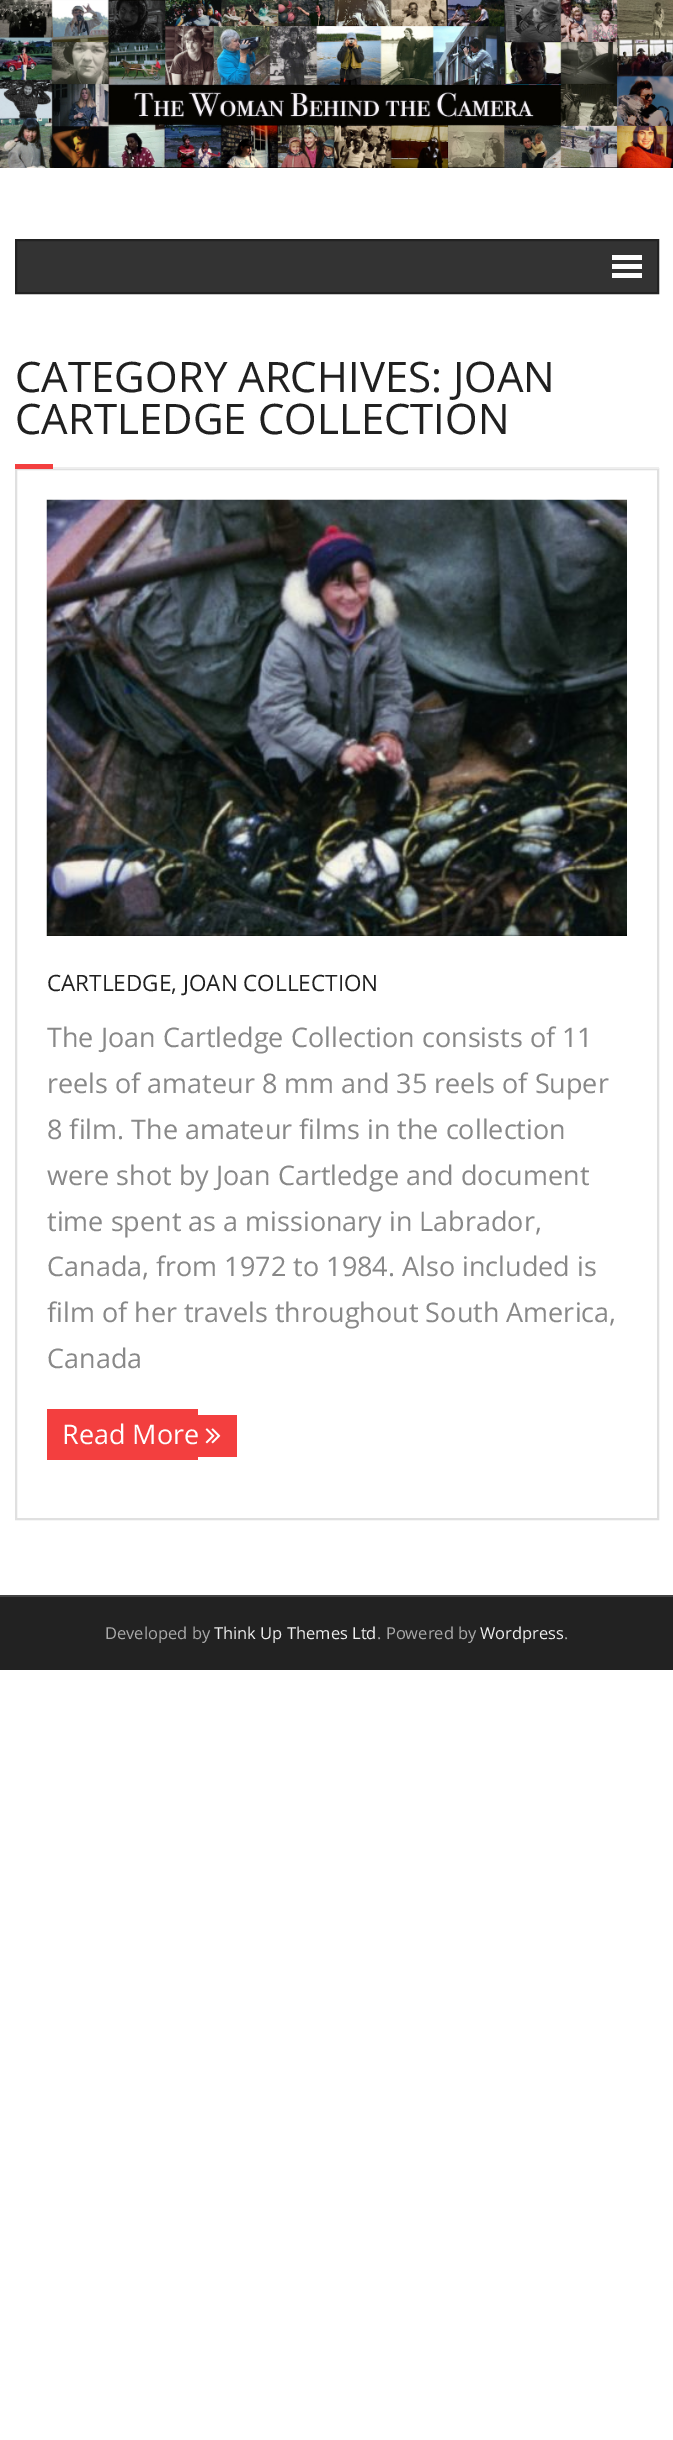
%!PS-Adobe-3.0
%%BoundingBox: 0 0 673 2440
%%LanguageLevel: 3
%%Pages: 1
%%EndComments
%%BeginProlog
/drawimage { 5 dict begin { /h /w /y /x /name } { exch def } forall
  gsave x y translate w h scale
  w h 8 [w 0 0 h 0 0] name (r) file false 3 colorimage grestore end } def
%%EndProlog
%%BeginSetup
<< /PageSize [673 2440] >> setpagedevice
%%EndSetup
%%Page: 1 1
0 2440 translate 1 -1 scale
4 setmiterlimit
1 setgray
0 0 673 2440 rectfill
(images/1.raw) 0 0 673 168 drawimage
0.2 setgray
newpath 16 240 moveto 658 240 lineto 658 293 lineto 16 293 lineto closepath gsave fill grestore
0.133 setgray
2 setlinewidth
stroke
1 setgray
612 255 30 5 rectfill
612 264 30 5 rectfill
612 273 30 5 rectfill
0.878 setgray
16 469 642 1050 rectstroke
0.953 0.247 0.247 setrgbcolor
15 464 38 5 rectfill
0.933 setgray
53 467 606 2 rectfill
(images/2.raw) 46 499 581 437 drawimage
0.953 0.247 0.247 setrgbcolor
47 1409 151 51 rectfill
198 1415 39 42 rectfill
(images/3.raw) 205 1428 16 16 drawimage
0.133 setgray
0 1597 673 73 rectfill
0.267 setgray
0 1595 673 2 rectfill
/OpenSans-Regular [42 0 0 -42 0 0] selectfont
0.125 setgray
15 392 moveto (CATEGORY ARCHIVES: JOAN) show
15 434 moveto (CARTLEDGE COLLECTION) show
/OpenSans-Regular [22.5 0 0 -22.5 0 0] selectfont
47 991 moveto (CARTLEDGE, JOAN COLLECTION) show
/OpenSans-Regular [27 0 0 -27 0 0] selectfont
0.533 setgray
47 1047 moveto (The Joan Cartledge Collection consists of 11) show
47 1093 moveto (reels of amateur 8 mm and 35 reels of Super) show
47 1139 moveto (8 film. The amateur films in the collection) show
47 1185 moveto (were shot by Joan Cartledge and document) show
47 1231 moveto (time spent as a missionary in Labrador,) show
47 1276 moveto (Canada, from 1972 to 1984. Also included is) show
47 1322 moveto (film of her travels throughout South America,) show
47 1368 moveto (Canada) show
1 setgray
62 1444 moveto (Read More) show
/OpenSans-Regular [16.5 0 0 -16.5 0 0] selectfont
0.667 setgray
105 1639 moveto (Developed by) show
0.933 setgray
214 1639 moveto (Think Up Themes Ltd) show
0.667 setgray
377 1639 moveto (. Powered by) show
0.933 setgray
480 1639 moveto (Wordpress) show
0.667 setgray
564 1639 moveto (.) show
showpage
%%EOF
